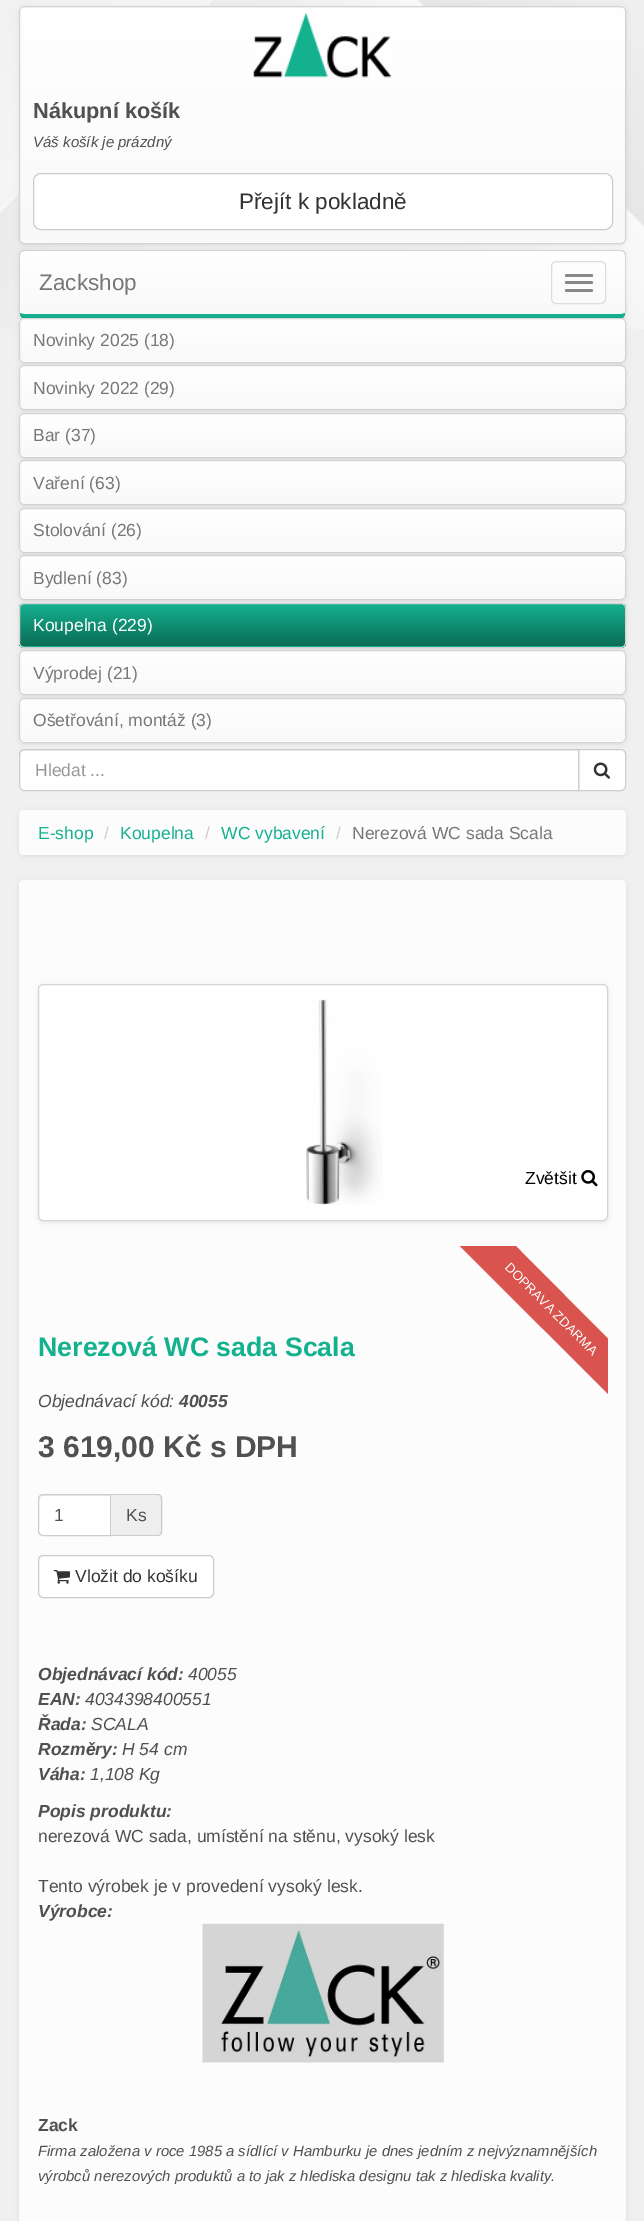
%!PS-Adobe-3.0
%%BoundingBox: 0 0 644 2221
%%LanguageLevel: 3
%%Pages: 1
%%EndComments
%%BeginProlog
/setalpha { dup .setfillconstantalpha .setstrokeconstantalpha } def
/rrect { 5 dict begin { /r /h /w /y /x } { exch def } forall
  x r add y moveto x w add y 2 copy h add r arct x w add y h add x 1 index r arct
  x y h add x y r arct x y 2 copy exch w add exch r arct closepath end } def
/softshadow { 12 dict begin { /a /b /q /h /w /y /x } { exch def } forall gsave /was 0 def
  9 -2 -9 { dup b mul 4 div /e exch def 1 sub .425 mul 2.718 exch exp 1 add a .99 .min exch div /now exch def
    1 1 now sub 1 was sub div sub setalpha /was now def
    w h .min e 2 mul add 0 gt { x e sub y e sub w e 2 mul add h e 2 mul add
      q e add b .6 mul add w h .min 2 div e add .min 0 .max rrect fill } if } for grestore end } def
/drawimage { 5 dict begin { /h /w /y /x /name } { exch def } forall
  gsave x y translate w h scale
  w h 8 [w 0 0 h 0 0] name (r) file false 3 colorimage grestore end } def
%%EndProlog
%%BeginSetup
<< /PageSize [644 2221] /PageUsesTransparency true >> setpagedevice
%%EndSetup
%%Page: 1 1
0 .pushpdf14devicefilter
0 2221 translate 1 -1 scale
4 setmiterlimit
0.941 setgray
0 0 644 2221 rectfill
(images/1.raw) 0 0 644 329 drawimage
0 setgray
19 8 607 237 5 2.5 0.07 softshadow
gsave
19 6 607 238 5 rrect clip newpath
gsave newpath 19 6 moveto 626 6 lineto 626 8 lineto 19 8 lineto closepath clip newpath
<< /ShadingType 2 /ColorSpace /DeviceRGB /Coords [323 -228 323 7.5] /Extend [true true] /Function << /FunctionType 2 /Domain [0 1] /C0 [1 1 1] /C1 [0.976 0.976 0.976] /N 1 >> >> shfill grestore
gsave newpath 19 8 moveto 626 8 lineto 626 243 lineto 19 243 lineto closepath clip newpath
<< /ShadingType 2 /ColorSpace /DeviceRGB /Coords [323 7.5 323 243] /Extend [true true] /Function << /FunctionType 2 /Domain [0 1] /C0 [1 1 1] /C1 [0.976 0.976 0.976] /N 1 >> >> shfill grestore
grestore
0.831 setgray
19.5 6.5 606 237 4.5 rrect stroke
(images/2.raw) 253 12 139 66 drawimage
1 setgray
33.5 173.5 579 56 7.5 rrect gsave fill grestore
0.8 setgray
stroke
0 setgray
19 251 607 68 5 2.5 0.07 softshadow
gsave newpath 24 251 moveto 621 251 lineto 623 251 625 253 625 255 curveto 625 312 lineto 625 313 623 314 621 314 curveto 24 314 lineto 22 314 20 313 20 312 curveto 20 255 lineto 20 253 22 251 24 251 curveto closepath clip newpath
<< /ShadingType 2 /ColorSpace /DeviceRGB /Coords [323 251 323 314] /Extend [true true] /Function << /FunctionType 2 /Domain [0 1] /C0 [1 1 1] /C1 [0.976 0.976 0.976] /N 1 >> >> shfill grestore
0.831 setgray
newpath 24 250 moveto 22 250 21 251 20 252 curveto 21 252 lineto 22 252 23 251 24 251 curveto 621 251 lineto 622 251 623 252 624 252 curveto 625 252 lineto 624 251 623 250 621 250 curveto closepath fill
newpath 625 252 moveto 626 254 lineto 626 302 lineto 626 304 627 311 625 315 curveto 625 313 lineto 625 255 lineto 624 252 lineto closepath fill
0.078 0.694 0.561 setrgbcolor
newpath 22 318 moveto 20 315 lineto 20 313 lineto 21 313 22 314 24 314 curveto 621 314 lineto 623 314 624 313 625 313 curveto 625 315 lineto 623 318 lineto closepath fill
0.831 setgray
newpath 20 252 moveto 19 254 lineto 19 302 lineto 19 304 18 311 20 315 curveto 20 313 lineto 20 255 lineto 21 252 lineto closepath fill
0.867 setgray
551.5 261.5 54 42 4.5 rrect stroke
0.533 setgray
565 274 28 3 1.5 rrect fill
565 281 28 3 1.5 rrect fill
565 289 28 3 1.5 rrect fill
0 setgray
19 319 607 45 5 2.5 0.07 softshadow
gsave
19 318 607 45 5 rrect clip newpath
gsave newpath 19 319 moveto 626 319 lineto 626 361 lineto 19 361 lineto closepath clip newpath
<< /ShadingType 2 /ColorSpace /DeviceRGB /Coords [323 319 323 361] /Extend [true true] /Function << /FunctionType 2 /Domain [0 1] /C0 [1 1 1] /C1 [0.976 0.976 0.976] /N 1 >> >> shfill grestore
gsave newpath 19 361 moveto 626 361 lineto 626 363 lineto 19 363 lineto closepath clip newpath
<< /ShadingType 2 /ColorSpace /DeviceRGB /Coords [323 361 323 404] /Extend [true true] /Function << /FunctionType 2 /Domain [0 1] /C0 [1 1 1] /C1 [0.976 0.976 0.976] /N 1 >> >> shfill grestore
grestore
0.831 setgray
19.5 318.5 606 44 4.5 rrect stroke
0 setgray
19 366 607 45 5 2.5 0.07 softshadow
gsave
19 365 607 45 5 rrect clip newpath
gsave newpath 19 366 moveto 626 366 lineto 626 409 lineto 19 409 lineto closepath clip newpath
<< /ShadingType 2 /ColorSpace /DeviceRGB /Coords [323 366 323 409] /Extend [true true] /Function << /FunctionType 2 /Domain [0 1] /C0 [1 1 1] /C1 [0.976 0.976 0.976] /N 1 >> >> shfill grestore
grestore
0.831 setgray
19.5 365.5 606 44 4.5 rrect stroke
0 setgray
19 414 607 45 5 2.5 0.07 softshadow
gsave
19 413 607 45 5 rrect clip newpath
gsave newpath 19 414 moveto 626 414 lineto 626 456 lineto 19 456 lineto closepath clip newpath
<< /ShadingType 2 /ColorSpace /DeviceRGB /Coords [323 414 323 456] /Extend [true true] /Function << /FunctionType 2 /Domain [0 1] /C0 [1 1 1] /C1 [0.976 0.976 0.976] /N 1 >> >> shfill grestore
gsave newpath 19 456 moveto 626 456 lineto 626 458 lineto 19 458 lineto closepath clip newpath
<< /ShadingType 2 /ColorSpace /DeviceRGB /Coords [323 456 323 499] /Extend [true true] /Function << /FunctionType 2 /Domain [0 1] /C0 [1 1 1] /C1 [0.976 0.976 0.976] /N 1 >> >> shfill grestore
grestore
0.831 setgray
19.5 413.5 606 44 4.5 rrect stroke
0 setgray
19 461 607 45 5 2.5 0.07 softshadow
gsave
19 460 607 45 5 rrect clip newpath
gsave newpath 19 461 moveto 626 461 lineto 626 504 lineto 19 504 lineto closepath clip newpath
<< /ShadingType 2 /ColorSpace /DeviceRGB /Coords [323 461 323 504] /Extend [true true] /Function << /FunctionType 2 /Domain [0 1] /C0 [1 1 1] /C1 [0.976 0.976 0.976] /N 1 >> >> shfill grestore
grestore
0.831 setgray
19.5 460.5 606 44 4.5 rrect stroke
0 setgray
19 509 607 45 5 2.5 0.07 softshadow
gsave
19 508 607 45 5 rrect clip newpath
gsave newpath 19 509 moveto 626 509 lineto 626 551 lineto 19 551 lineto closepath clip newpath
<< /ShadingType 2 /ColorSpace /DeviceRGB /Coords [323 509 323 551] /Extend [true true] /Function << /FunctionType 2 /Domain [0 1] /C0 [1 1 1] /C1 [0.976 0.976 0.976] /N 1 >> >> shfill grestore
gsave newpath 19 551 moveto 626 551 lineto 626 553 lineto 19 553 lineto closepath clip newpath
<< /ShadingType 2 /ColorSpace /DeviceRGB /Coords [323 551 323 594] /Extend [true true] /Function << /FunctionType 2 /Domain [0 1] /C0 [1 1 1] /C1 [0.976 0.976 0.976] /N 1 >> >> shfill grestore
grestore
0.831 setgray
19.5 508.5 606 44 4.5 rrect stroke
0 setgray
19 556 607 45 5 2.5 0.07 softshadow
gsave
19 555 607 45 5 rrect clip newpath
gsave newpath 19 556 moveto 626 556 lineto 626 599 lineto 19 599 lineto closepath clip newpath
<< /ShadingType 2 /ColorSpace /DeviceRGB /Coords [323 556 323 599] /Extend [true true] /Function << /FunctionType 2 /Domain [0 1] /C0 [1 1 1] /C1 [0.976 0.976 0.976] /N 1 >> >> shfill grestore
grestore
0.831 setgray
19.5 555.5 606 44 4.5 rrect stroke
0 setgray
19 604 607 45 5 2.5 0.07 softshadow
gsave
19 603 607 45 5 rrect clip newpath
gsave newpath 19 604 moveto 626 604 lineto 626 646 lineto 19 646 lineto closepath clip newpath
<< /ShadingType 2 /ColorSpace /DeviceRGB /Coords [323 604 323 646] /Extend [true true] /Function << /FunctionType 2 /Domain [0 1] /C0 [0.078 0.694 0.561] /C1 [0.047 0.424 0.341] /N 1 >> >> shfill grestore
gsave newpath 19 646 moveto 626 646 lineto 626 648 lineto 19 648 lineto closepath clip newpath
<< /ShadingType 2 /ColorSpace /DeviceRGB /Coords [323 646 323 689] /Extend [true true] /Function << /FunctionType 2 /Domain [0 1] /C0 [0.078 0.694 0.561] /C1 [0.047 0.424 0.341] /N 1 >> >> shfill grestore
grestore
0.831 setgray
19.5 603.5 606 44 4.5 rrect stroke
0 setgray
19 651 607 45 5 2.5 0.07 softshadow
gsave
19 650 607 45 5 rrect clip newpath
gsave newpath 19 651 moveto 626 651 lineto 626 694 lineto 19 694 lineto closepath clip newpath
<< /ShadingType 2 /ColorSpace /DeviceRGB /Coords [323 651 323 694] /Extend [true true] /Function << /FunctionType 2 /Domain [0 1] /C0 [1 1 1] /C1 [0.976 0.976 0.976] /N 1 >> >> shfill grestore
grestore
0.831 setgray
19.5 650.5 606 44 4.5 rrect stroke
0 setgray
19 699 607 45 5 2.5 0.07 softshadow
gsave
19 698 607 45 5 rrect clip newpath
gsave newpath 19 699 moveto 626 699 lineto 626 741 lineto 19 741 lineto closepath clip newpath
<< /ShadingType 2 /ColorSpace /DeviceRGB /Coords [323 699 323 741] /Extend [true true] /Function << /FunctionType 2 /Domain [0 1] /C0 [1 1 1] /C1 [0.976 0.976 0.976] /N 1 >> >> shfill grestore
gsave newpath 19 741 moveto 626 741 lineto 626 743 lineto 19 743 lineto closepath clip newpath
<< /ShadingType 2 /ColorSpace /DeviceRGB /Coords [323 741 323 784] /Extend [true true] /Function << /FunctionType 2 /Domain [0 1] /C0 [1 1 1] /C1 [0.976 0.976 0.976] /N 1 >> >> shfill grestore
grestore
0.831 setgray
19.5 698.5 606 44 4.5 rrect stroke
1 setgray
newpath 578.5 749.5 moveto 621 749.5 lineto 623.5 749.5 625.5 751.5 625.5 754 curveto 625.5 786 lineto 625.5 788.5 623.5 790.5 621 790.5 curveto 578.5 790.5 lineto closepath gsave fill grestore
0.8 setgray
stroke
1 setgray
newpath 24 749 moveto 579 749 lineto 579 791 lineto 24 791 lineto 21 791 19 789 19 786 curveto 19 754 lineto 19 751 21 749 24 749 curveto closepath fill
0.925 setgray
newpath 24 751 moveto 578 751 lineto 578 750 lineto 24 750 lineto 21 750 20 752 20 755 curveto 20 753 22 751 24 751 curveto closepath fill
0.8 setgray
newpath 24 749.5 moveto 578.5 749.5 lineto 578.5 790.5 lineto 24 790.5 lineto 21.5 790.5 19.5 788.5 19.5 786 curveto 19.5 754 lineto 19.5 751.5 21.5 749.5 24 749.5 curveto closepath stroke
(images/3.raw) 593 762 17 17 drawimage
0 setgray
19 811 607 45 5 2.5 0.07 softshadow
0.988 setgray
19 810 607 45 5 rrect fill
0 setgray
19 881 607 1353 5 2.5 0.07 softshadow
0.988 setgray
19 880 607 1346 5 rrect fill
0 setgray
38 985 570 238 5 2.5 0.07 softshadow
1 setgray
38.5 984.5 569 236 4.5 rrect gsave fill grestore
0.831 setgray
stroke
(images/4.raw) 306 999 77 206 drawimage
(images/5.raw) 581 1170 17 17 drawimage
gsave
38 1246 570 250 rectclip
0.851 0.325 0.31 setrgbcolor
newpath 477 1207 moveto 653 1384 lineto 626 1412 lineto 449 1235 lineto closepath fill
grestore
1 setgray
newpath 43 1494 moveto 111 1494 lineto 111 1536 lineto 43 1536 lineto 40 1536 38 1534 38 1531 curveto 38 1499 lineto 38 1496 40 1494 43 1494 curveto closepath fill
0.925 setgray
newpath 42 1496 moveto 110 1496 lineto 110 1495 lineto 43 1495 lineto 41 1495 39 1497 39 1499 curveto 39 1500 lineto 39 1498 40 1496 42 1496 curveto closepath fill
0.8 setgray
newpath 43 1494.5 moveto 110.5 1494.5 lineto 110.5 1535.5 lineto 43 1535.5 lineto 40.5 1535.5 38.5 1533.5 38.5 1531 curveto 38.5 1499 lineto 38.5 1496.5 40.5 1494.5 43 1494.5 curveto closepath stroke
0.933 setgray
newpath 111 1494 moveto 158 1494 lineto 161 1494 163 1496 163 1499 curveto 163 1531 lineto 163 1534 161 1536 158 1536 curveto 111 1536 lineto closepath fill
0.8 setgray
newpath 111 1494 moveto 158 1494 lineto 160 1494 162 1496 162 1499 curveto 162 1531 lineto 162 1534 160 1536 158 1536 curveto 111 1536 lineto closepath 111 1495 moveto 158 1495 lineto 160 1495 161 1497 161 1499 curveto 161 1531 lineto 161 1533 160 1535 158 1535 curveto 111 1535 lineto closepath eofill
1 setgray
38.5 1555.5 175 42 4.5 rrect gsave fill grestore
0.8 setgray
stroke
(images/6.raw) 53 1570 17 14 drawimage
(images/7.raw) 202 1923 242 140 drawimage
/LiberationSans-Bold [21.75 0 0 -21.75 0 0] selectfont
0.314 setgray
33 118 moveto (Nákupní košík) show
/LiberationSans-Italic [15 0 0 -15 0 0] selectfont
33 147 moveto (Váš košík je prázdný) show
/LiberationSans-Regular [22.5 0 0 -22.5 0 0] selectfont
0.2 setgray
239 209 moveto (Přejít k pokladně) show
0.467 setgray
39 290 moveto (Zackshop) show
/LiberationSans-Regular [17.5 0 0 -17.5 0 0] selectfont
33 346 moveto (Novinky 2025 \(18\)) show
33 394 moveto (Novinky 2022 \(29\)) show
33 441 moveto (Bar \(37\)) show
33 489 moveto (Vaření \(63\)) show
33 536 moveto (Stolování \(26\)) show
33 584 moveto (Bydlení \(83\)) show
1 setgray
33 631 moveto (Koupelna \(229\)) show
0.467 setgray
33 679 moveto (Výprodej \(21\)) show
33 726 moveto (Ošetřování, montáž \(3\)) show
0.6 setgray
35 776 moveto (Hledat ...) show
0.078 0.694 0.561 setrgbcolor
38 839 moveto (E-shop) show
0.8 setgray
104 839 moveto (/) show
0.078 0.694 0.561 setrgbcolor
120 839 moveto (Koupelna) show
0.8 setgray
205 839 moveto (/) show
0.078 0.694 0.561 setrgbcolor
221 839 moveto (WC vybavení) show
0.8 setgray
336 839 moveto (/) show
0.467 setgray
352 839 moveto (Nerezová WC sada Scala) show
0 setgray
525 1184 moveto (Zvětšit) show
/LiberationSans-Bold [26.75 0 0 -26.75 0 0] selectfont
0.078 0.694 0.561 setrgbcolor
38 1356 moveto (Nerezová WC sada Scala) show
/LiberationSans-Regular [13.25 0 0 -13.25 0 0] selectfont
1 setgray
gsave 504 1268 translate 45 rotate 0 0 moveto (DOPRAVA ZDARMA) show grestore
/LiberationSans-Italic [17.5 0 0 -17.5 0 0] selectfont
0.314 setgray
38 1407 moveto (Objednávací kód:) show
/LiberationSans-BoldItalic [17.5 0 0 -17.5 0 0] selectfont
179 1407 moveto (40055) show
/LiberationSans-Bold [30 0 0 -30 0 0] selectfont
38 1457 moveto (3 619,00 Kč s DPH) show
/LiberationSans-Regular [17.5 0 0 -17.5 0 0] selectfont
54 1521 moveto (1) show
126 1521 moveto (Ks) show
0.2 setgray
75 1582 moveto (Vložit do košíku) show
/LiberationSans-BoldItalic [17.5 0 0 -17.5 0 0] selectfont
0.314 setgray
38 1680 moveto (Objednávací kód:) show
/LiberationSans-Italic [17.5 0 0 -17.5 0 0] selectfont
188 1680 moveto (40055) show
/LiberationSans-BoldItalic [17.5 0 0 -17.5 0 0] selectfont
38 1705 moveto (EAN:) show
/LiberationSans-Italic [17.5 0 0 -17.5 0 0] selectfont
85 1705 moveto (4034398400551) show
/LiberationSans-BoldItalic [17.5 0 0 -17.5 0 0] selectfont
38 1730 moveto (Řada:) show
/LiberationSans-Italic [17.5 0 0 -17.5 0 0] selectfont
91 1730 moveto (SCALA) show
/LiberationSans-BoldItalic [17.5 0 0 -17.5 0 0] selectfont
38 1755 moveto (Rozměry:) show
/LiberationSans-Italic [17.5 0 0 -17.5 0 0] selectfont
122 1755 moveto (H 54 cm) show
/LiberationSans-BoldItalic [17.5 0 0 -17.5 0 0] selectfont
38 1780 moveto (Váha:) show
/LiberationSans-Italic [17.5 0 0 -17.5 0 0] selectfont
90 1780 moveto (1,108 Kg) show
/LiberationSans-BoldItalic [17.5 0 0 -17.5 0 0] selectfont
38 1817 moveto (Popis produktu:) show
/LiberationSans-Regular [17.5 0 0 -17.5 0 0] selectfont
38 1842 moveto (nerezová WC sada, umístění na stěnu, vysoký lesk) show
38 1892 moveto (Tento výrobek je v provedení vysoký lesk.) show
/LiberationSans-BoldItalic [17.5 0 0 -17.5 0 0] selectfont
38 1917 moveto (Výrobce:) show
/LiberationSans-Bold [17.5 0 0 -17.5 0 0] selectfont
38 2131 moveto (Zack) show
/LiberationSans-Italic [14.9 0 0 -14.9 0 0] selectfont
38 2156 moveto (Firma založena v roce 1985 a sídlící v Hamburku je dnes jedním z nejvýznamnějších) show
38 2181 moveto (výrobců nerezových produktů a to jak z hlediska designu tak z hlediska kvality.) show
.poppdf14devicefilter showpage
%%EOF
